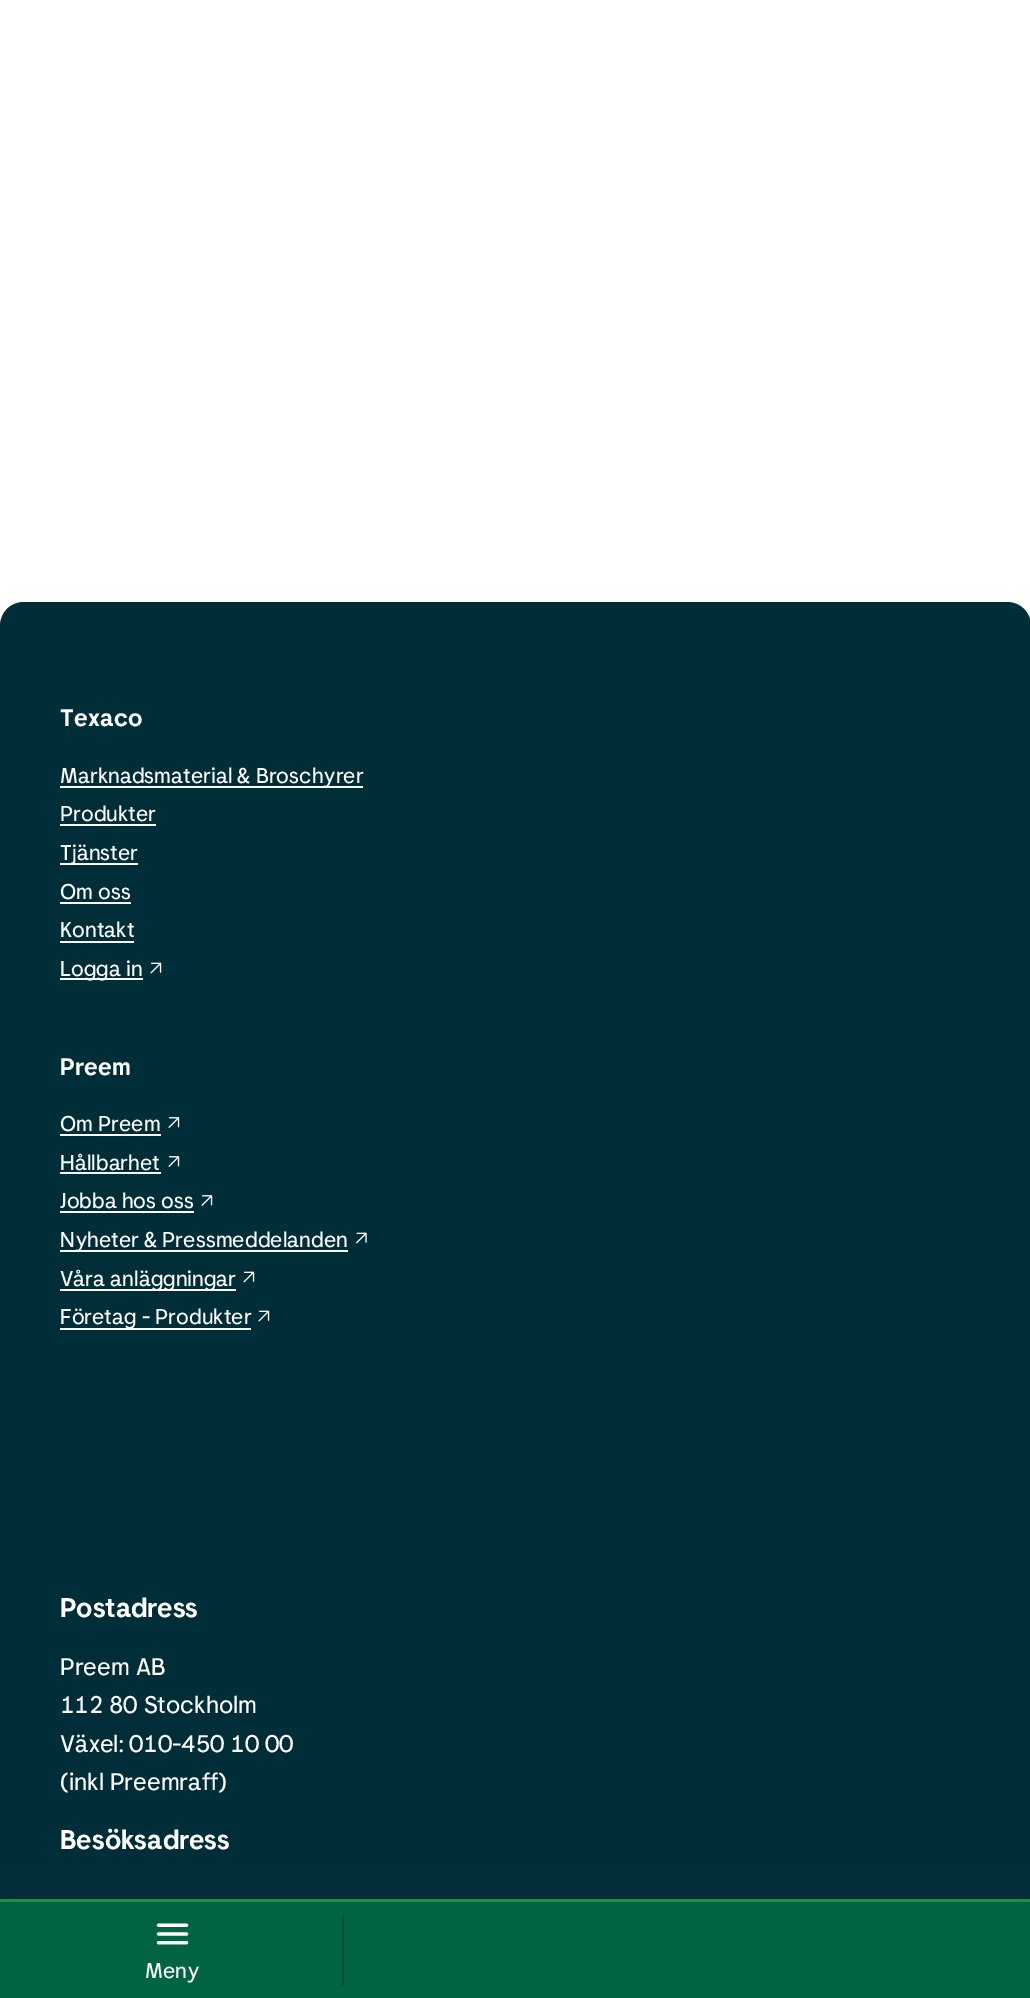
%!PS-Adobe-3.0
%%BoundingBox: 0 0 1030 1998
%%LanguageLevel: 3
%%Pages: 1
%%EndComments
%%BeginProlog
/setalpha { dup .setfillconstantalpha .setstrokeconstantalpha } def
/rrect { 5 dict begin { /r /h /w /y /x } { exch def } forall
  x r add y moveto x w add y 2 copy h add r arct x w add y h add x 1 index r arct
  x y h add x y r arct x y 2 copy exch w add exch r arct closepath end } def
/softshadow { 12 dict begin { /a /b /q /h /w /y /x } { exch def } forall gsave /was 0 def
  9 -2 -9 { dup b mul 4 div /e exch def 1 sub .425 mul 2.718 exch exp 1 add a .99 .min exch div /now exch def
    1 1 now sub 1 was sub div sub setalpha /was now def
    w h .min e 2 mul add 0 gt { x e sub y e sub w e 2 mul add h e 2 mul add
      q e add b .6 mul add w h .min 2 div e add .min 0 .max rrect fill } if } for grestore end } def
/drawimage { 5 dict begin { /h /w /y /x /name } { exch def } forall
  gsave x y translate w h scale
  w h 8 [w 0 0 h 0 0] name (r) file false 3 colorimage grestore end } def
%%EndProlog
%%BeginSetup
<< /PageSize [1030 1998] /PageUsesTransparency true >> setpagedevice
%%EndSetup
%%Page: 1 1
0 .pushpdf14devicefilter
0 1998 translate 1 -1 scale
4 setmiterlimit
1 setgray
0 0 1030 1998 rectfill
0 0.18 0.22 setrgbcolor
newpath 24 602 moveto 1007 602 lineto 1020.5 602 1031 612.5 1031 626 curveto 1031 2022 lineto 0 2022 lineto 0 626 lineto 0 612.5 10.5 602 24 602 curveto closepath fill
1 setgray
60 786 303 2 rectfill
60 824 96 2 rectfill
60 863 78 2 rectfill
60 902 71 2 rectfill
60 941 74 2 rectfill
60 978 83 2 rectfill
(images/1.raw) 150 962 12 12 drawimage
60 1134 101 2 rectfill
(images/2.raw) 168 1117 12 11 drawimage
60 1172 101 2 rectfill
(images/2.raw) 168 1156 12 11 drawimage
60 1211 134 2 rectfill
(images/2.raw) 201 1195 12 11 drawimage
60 1250 288 2 rectfill
(images/3.raw) 356 1232 11 12 drawimage
60 1289 176 2 rectfill
(images/1.raw) 243 1271 12 12 drawimage
60 1328 191 2 rectfill
(images/1.raw) 258 1310 12 12 drawimage
0.196 0.196 0.365 setrgbcolor
8 1898 1015 84 0 20 0.25 softshadow
0 setgray
12 1908 1007 75 0 12 0.3 softshadow
0 0.388 0.255 setrgbcolor
0 1902 1030 96 rectfill
0.071 0.592 0.22 setrgbcolor
0 1899 1030 3 rectfill
(images/4.raw) 156 1923 33 22 drawimage
0.012 0.302 0.22 setrgbcolor
342 1914 2 72 rectfill
/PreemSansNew-Medium [24 0 0 -24 0 0] selectfont
1 setgray
60 726 moveto (Texaco) show
/PreemSansNew-Regular [21.4 0 0 -21.4 0 0] selectfont
60 783 moveto (Marknadsmaterial & Broschyrer) show
60 821 moveto (Produkter) show
60 860 moveto (Tjänster) show
60 899 moveto (Om oss) show
60 937 moveto (Kontakt) show
60 976 moveto (Logga in) show
/PreemSansNew-Medium [24 0 0 -24 0 0] selectfont
60 1075 moveto (Preem) show
/PreemSansNew-Regular [21.4 0 0 -21.4 0 0] selectfont
60 1131 moveto (Om Preem) show
60 1170 moveto (Hållbarhet) show
60 1208 moveto (Jobba hos oss) show
60 1247 moveto (Nyheter & Pressmeddelanden) show
60 1286 moveto (Våra anläggningar) show
60 1324 moveto (Företag - Produkter) show
/PreemSansNew-Medium [27 0 0 -27 0 0] selectfont
60 1617 moveto -0.25 0 (Postadress) ashow
/PreemSansNew-Regular [24 0 0 -24 0 0] selectfont
60 1675 moveto (Preem AB) show
60 1713 moveto (112 80 Stockholm) show
60 1752 moveto (Växel: 010-450 10 00) show
60 1790 moveto (\(inkl Preemraff\)) show
/PreemSansNew-Medium [27 0 0 -27 0 0] selectfont
60 1849 moveto -0.25 0 (Besöksadress) ashow
/PreemSansNew-Regular [21.4 0 0 -21.4 0 0] selectfont
145 1978 moveto (Meny) show
.poppdf14devicefilter showpage
%%EOF
